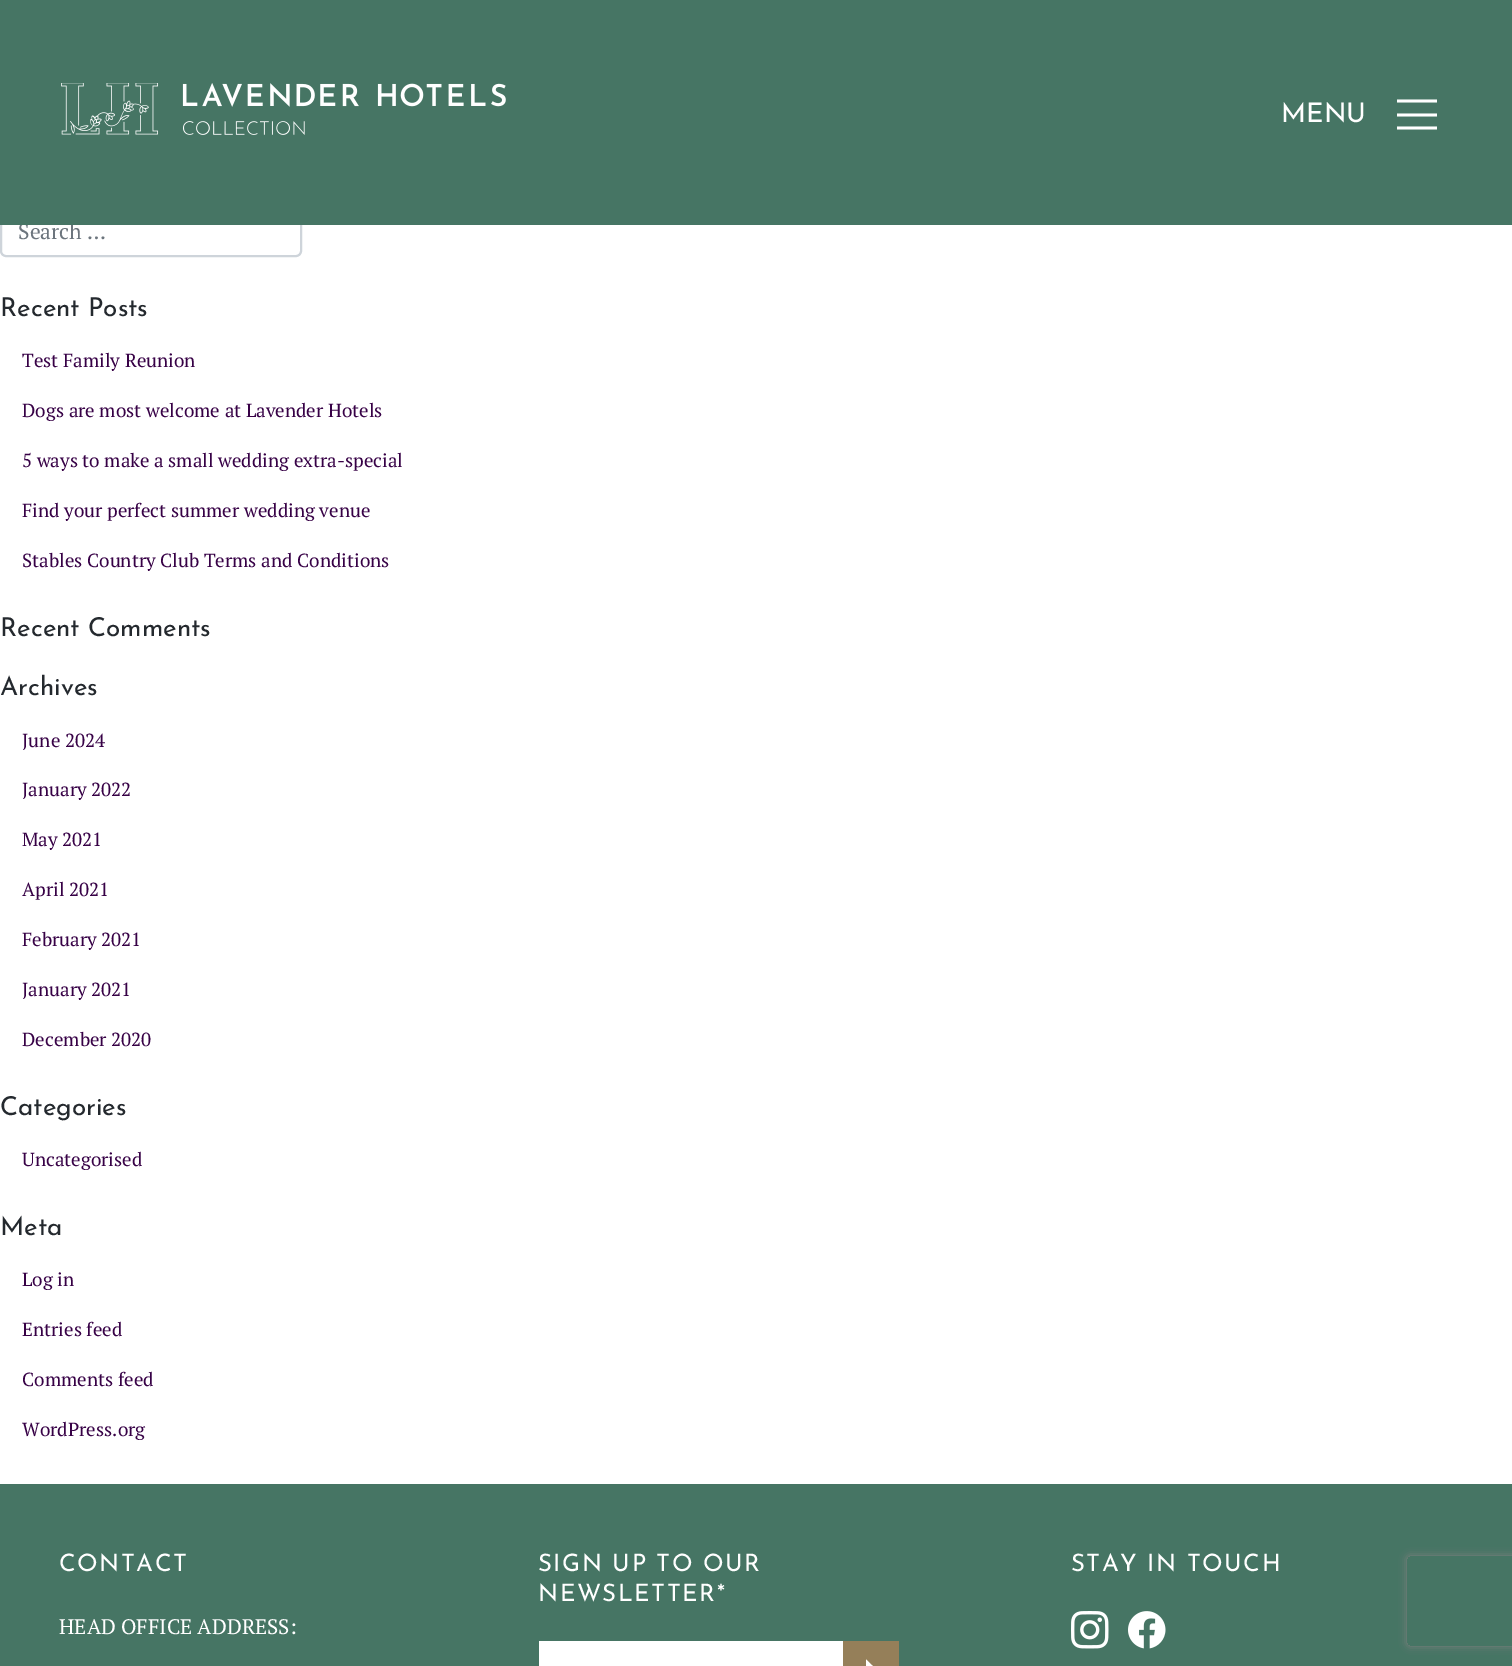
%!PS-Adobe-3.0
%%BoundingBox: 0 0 1512 1666
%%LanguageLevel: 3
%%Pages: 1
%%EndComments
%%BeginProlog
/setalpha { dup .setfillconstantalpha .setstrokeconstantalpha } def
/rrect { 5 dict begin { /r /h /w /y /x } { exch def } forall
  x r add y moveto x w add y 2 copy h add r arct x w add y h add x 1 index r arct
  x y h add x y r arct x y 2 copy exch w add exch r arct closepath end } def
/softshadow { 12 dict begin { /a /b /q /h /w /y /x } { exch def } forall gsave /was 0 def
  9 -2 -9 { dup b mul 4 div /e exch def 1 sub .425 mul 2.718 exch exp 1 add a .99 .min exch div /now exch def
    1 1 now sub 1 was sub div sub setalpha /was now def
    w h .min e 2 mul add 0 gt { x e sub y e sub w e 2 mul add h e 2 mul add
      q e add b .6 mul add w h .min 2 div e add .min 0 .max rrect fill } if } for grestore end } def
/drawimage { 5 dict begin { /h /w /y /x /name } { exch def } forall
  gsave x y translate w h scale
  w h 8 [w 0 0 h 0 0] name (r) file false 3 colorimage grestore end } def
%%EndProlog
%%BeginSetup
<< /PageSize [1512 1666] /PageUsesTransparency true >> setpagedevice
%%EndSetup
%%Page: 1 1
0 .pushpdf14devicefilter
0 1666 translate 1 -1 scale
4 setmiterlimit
1 setgray
0 0 1512 1666 rectfill
0.808 0.831 0.855 setrgbcolor
2 setlinewidth
1 205 300 51 5 rrect stroke
0.275 0.459 0.392 setrgbcolor
0 1484 1512 182 rectfill
1 setgray
539 1641 304 25 rectfill
0.584 0.498 0.349 setrgbcolor
843 1641 56 25 rectfill
1 setgray
newpath 878.5 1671.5 moveto 866 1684 lineto 866 1659.5 lineto closepath fill
(images/2.raw) 1071 1611 38 38 drawimage
(images/3.raw) 1128 1611 38 38 drawimage
gsave
newpath 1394 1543 moveto 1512 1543 lineto 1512 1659 lineto 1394 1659 lineto closepath 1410 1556 moveto 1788 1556 lineto 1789.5 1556 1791 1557.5 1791 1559 curveto 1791 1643 lineto 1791 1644.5 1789.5 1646 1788 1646 curveto 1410 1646 lineto 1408.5 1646 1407 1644.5 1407 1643 curveto 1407 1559 lineto 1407 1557.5 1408.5 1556 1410 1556 curveto closepath eoclip newpath
0.502 setgray
1407 1556 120 90 3 4 1 softshadow
grestore
/PTSerif-Regular [21.5 0 0 -21.5 0 0] selectfont
0.424 0.459 0.49 setrgbcolor
18 239 moveto (Search …) show
0.275 0.459 0.392 setrgbcolor
0 0 1512 225 rectfill
(images/1.raw) 61 83 445 52 drawimage
gsave
1397 95 40 40 rectclip
1 setgray
2.7 setlinewidth
newpath 1396.5 101 moveto 1437 101 lineto 1396.5 115 moveto 1437 115 lineto 1396.5 128 moveto 1437 128 lineto stroke
grestore
/JosefinSans-Regular [27 0 0 -27 0 0] selectfont
1 setgray
1281 122 moveto (MENU) show
/JosefinSans-Regular [26 0 0 -26 0 0] selectfont
0.141 0.161 0.18 setrgbcolor
0 316 moveto (Recent Posts) show
/PTSerif-Regular [18.9 0 0 -18.9 0 0] selectfont
0.216 0.004 0.275 setrgbcolor
22 367 moveto (Test Family Reunion) show
22 417 moveto (Dogs are most welcome at Lavender Hotels) show
22 467 moveto (5 ways to make a small wedding extra-special) show
22 517 moveto (Find your perfect summer wedding venue) show
22 567 moveto (Stables Country Club Terms and Conditions) show
/JosefinSans-Regular [26 0 0 -26 0 0] selectfont
0.141 0.161 0.18 setrgbcolor
0 636 moveto (Recent Comments) show
0 695 moveto (Archives) show
/PTSerif-Regular [18.9 0 0 -18.9 0 0] selectfont
0.216 0.004 0.275 setrgbcolor
22 747 moveto (June 2024) show
22 796 moveto (January 2022) show
22 846 moveto (May 2021) show
22 896 moveto (April 2021) show
22 946 moveto (February 2021) show
22 996 moveto (January 2021) show
22 1046 moveto (December 2020) show
/JosefinSans-Regular [26 0 0 -26 0 0] selectfont
0.141 0.161 0.18 setrgbcolor
0 1115 moveto (Categories) show
/PTSerif-Regular [18.9 0 0 -18.9 0 0] selectfont
0.216 0.004 0.275 setrgbcolor
22 1166 moveto (Uncategorised) show
/JosefinSans-Regular [26 0 0 -26 0 0] selectfont
0.141 0.161 0.18 setrgbcolor
0 1235 moveto (Meta) show
/PTSerif-Regular [18.9 0 0 -18.9 0 0] selectfont
0.216 0.004 0.275 setrgbcolor
22 1286 moveto (Log in) show
22 1336 moveto (Entries feed) show
22 1386 moveto (Comments feed) show
22 1436 moveto (WordPress.org) show
/JosefinSans-Regular [24 0 0 -24 0 0] selectfont
1 setgray
59 1571 moveto 1.5 0 (CONTACT) ashow
/PTSerif-Regular [21 0 0 -21 0 0] selectfont
59 1634 moveto (HEAD OFFICE ADDRESS:) show
/JosefinSans-Regular [24 0 0 -24 0 0] selectfont
538 1571 moveto 1.5 0 (SIGN UP TO OUR) ashow
538 1601 moveto 1.5 0 (NEWSLETTER*) ashow
1071 1571 moveto 1.5 0 (STAY IN TOUCH) ashow
.poppdf14devicefilter showpage
%%EOF
